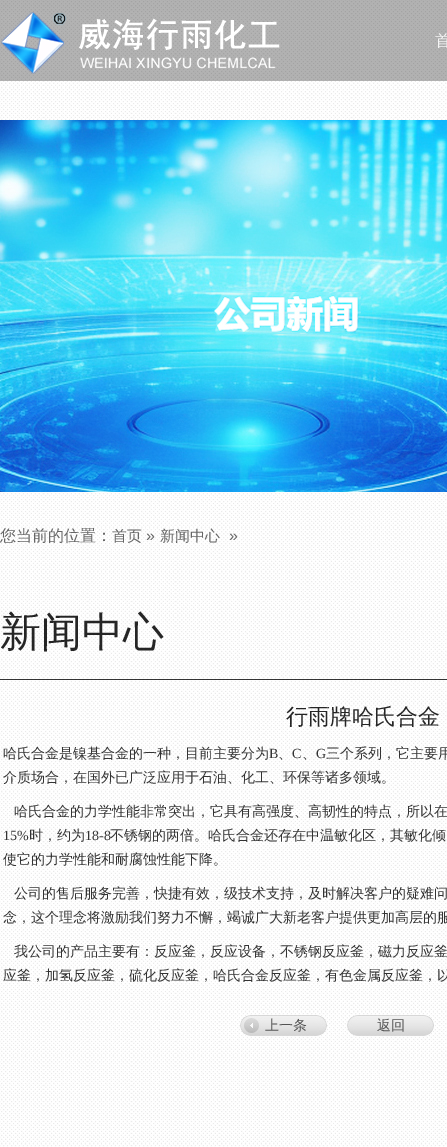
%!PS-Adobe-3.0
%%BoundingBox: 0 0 447 1147
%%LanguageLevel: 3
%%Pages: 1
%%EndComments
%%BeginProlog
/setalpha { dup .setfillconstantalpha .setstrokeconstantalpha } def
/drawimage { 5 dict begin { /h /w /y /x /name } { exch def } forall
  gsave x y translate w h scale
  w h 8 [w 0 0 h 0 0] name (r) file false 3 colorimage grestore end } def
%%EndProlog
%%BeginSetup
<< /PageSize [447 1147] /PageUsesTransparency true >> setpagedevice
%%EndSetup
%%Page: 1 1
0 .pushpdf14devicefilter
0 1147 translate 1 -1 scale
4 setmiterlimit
1 setgray
0 0 447 1147 rectfill
(images/1.raw) 0 0 447 1147 drawimage
0.3 setalpha
0 setgray
0 0 447 81 rectfill
1 setalpha
(images/2.raw) 1 12 279 62 drawimage
(images/3.raw) 0 120 447 372 drawimage
0.2 setgray
0 679 447 1 rectfill
(images/4.raw) 240 1015 87 21 drawimage
(images/5.raw) 347 1015 87 21 drawimage
/WenQuanYiZenHei-Medium [16 0 0 -16 0 0] selectfont
0.961 setgray
435 46 moveto (首) show
0.4 setgray
0 541 moveto (您当前的位置：) show
/WenQuanYiZenHei-Medium [15 0 0 -15 0 0] selectfont
112 541 moveto (首页) show
/LiberationSans-Regular [16 0 0 -16 0 0] selectfont
146 541 moveto (») show
/WenQuanYiZenHei-Medium [15 0 0 -15 0 0] selectfont
160 541 moveto (新闻中心) show
/LiberationSans-Regular [16 0 0 -16 0 0] selectfont
229 541 moveto (») show
/WenQuanYiZenHei-Medium [41 0 0 -41 0 0] selectfont
0.145 setgray
0 646 moveto (新闻中心) show
/WenQuanYiZenHei-Medium [22 0 0 -22 0 0] selectfont
286 724 moveto (行雨牌哈氏合金) show
/WenQuanYiZenHei-Medium [14 0 0 -14 0 0] selectfont
0.2 setgray
3 758 moveto (哈氏合金是镍基合金的一种，目前主要分为) show
/LiberationSerif-Regular [14 0 0 -14 0 0] selectfont
269 758 moveto (B) show
/WenQuanYiZenHei-Medium [14 0 0 -14 0 0] selectfont
278 758 moveto (、) show
/LiberationSerif-Regular [14 0 0 -14 0 0] selectfont
292 758 moveto (C) show
/WenQuanYiZenHei-Medium [14 0 0 -14 0 0] selectfont
302 758 moveto (、) show
/LiberationSerif-Regular [14 0 0 -14 0 0] selectfont
316 758 moveto (G) show
/WenQuanYiZenHei-Medium [14 0 0 -14 0 0] selectfont
326 758 moveto (三个系列，它主要用) show
3 782 moveto (介质场合，在国外已广泛应用于石油、化工、环保等诸多领域。) show
14 816 moveto (哈氏合金的力学性能非常突出，它具有高强度、高韧性的特点，所以在) show
/LiberationSerif-Regular [14 0 0 -14 0 0] selectfont
3 840 moveto (15%) show
/WenQuanYiZenHei-Medium [14 0 0 -14 0 0] selectfont
29 840 moveto (时，约为) show
/LiberationSerif-Regular [14 0 0 -14 0 0] selectfont
85 840 moveto (18-8) show
/WenQuanYiZenHei-Medium [14 0 0 -14 0 0] selectfont
110 840 moveto (不锈钢的两倍。哈氏合金还存在中温敏化区，其敏化倾) show
3 864 moveto (使它的力学性能和耐腐蚀性能下降。) show
14 898 moveto (公司的售后服务完善，快捷有效，级技术支持，及时解决客户的疑难问) show
3 922 moveto (念，这个理念将激励我们努力不懈，竭诚广大新老客户提供更加高层的服) show
14 956 moveto (我公司的产品主要有：反应釜，反应设备，不锈钢反应釜，磁力反应釜) show
3 980 moveto (应釜，加氢反应釜，硫化反应釜，哈氏合金反应釜，有色金属反应釜，以) show
0.322 setgray
265 1030 moveto (上一条) show
377 1030 moveto (返回) show
.poppdf14devicefilter showpage
%%EOF
